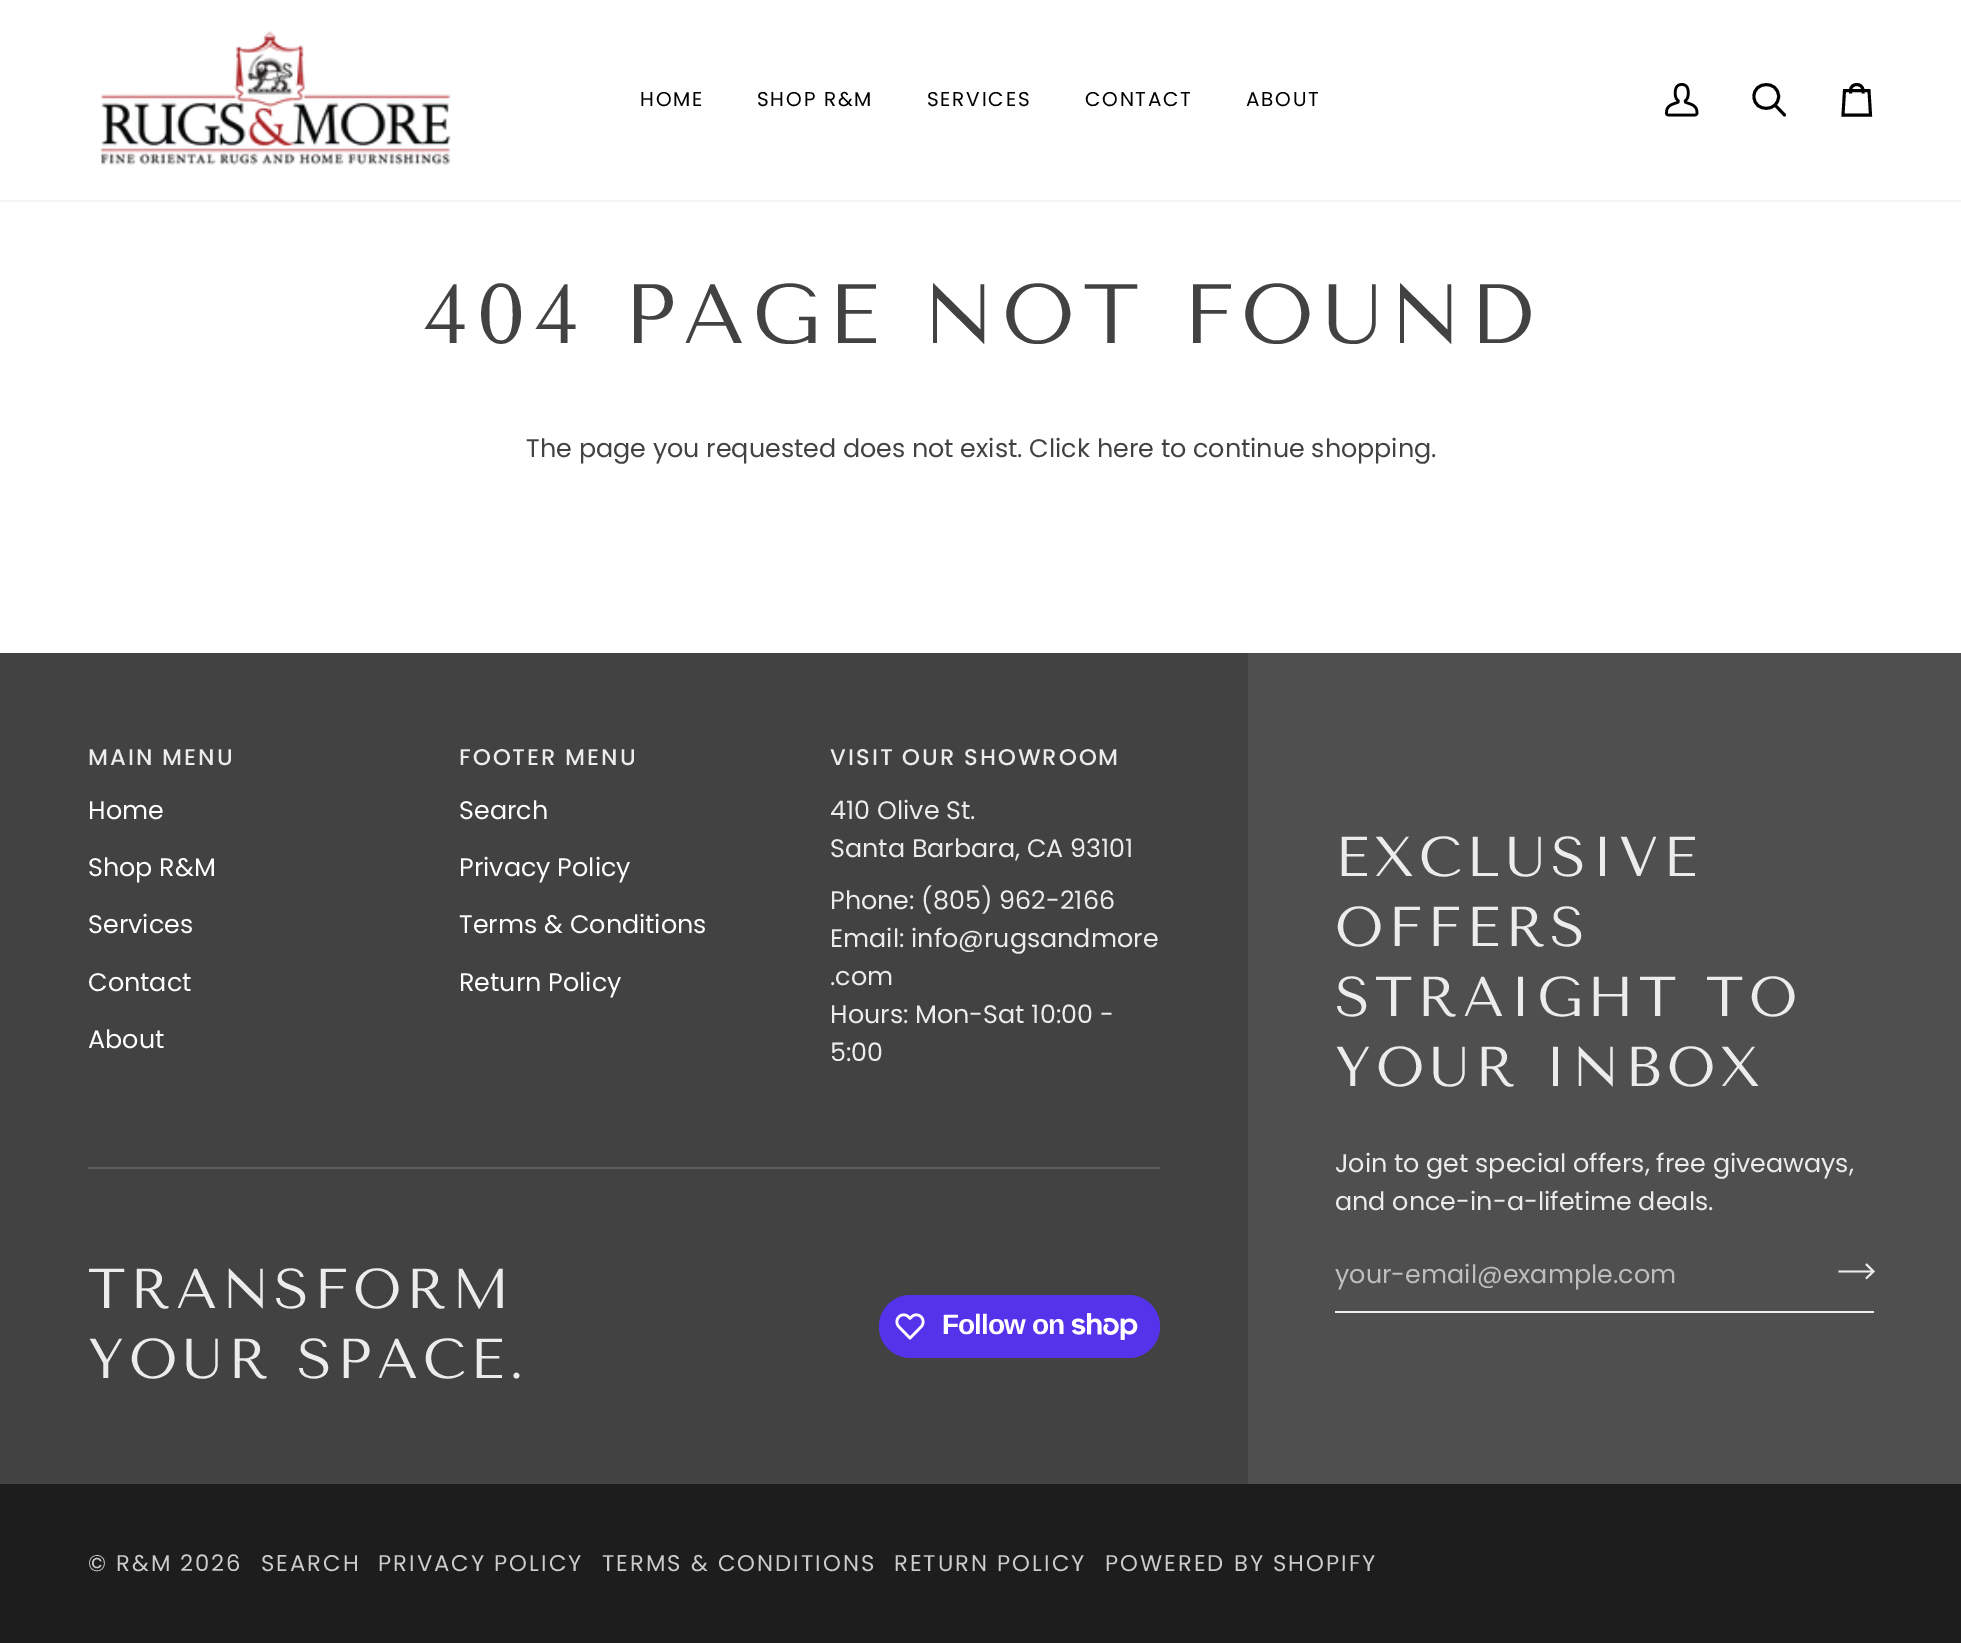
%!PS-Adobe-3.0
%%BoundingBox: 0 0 1961 1643
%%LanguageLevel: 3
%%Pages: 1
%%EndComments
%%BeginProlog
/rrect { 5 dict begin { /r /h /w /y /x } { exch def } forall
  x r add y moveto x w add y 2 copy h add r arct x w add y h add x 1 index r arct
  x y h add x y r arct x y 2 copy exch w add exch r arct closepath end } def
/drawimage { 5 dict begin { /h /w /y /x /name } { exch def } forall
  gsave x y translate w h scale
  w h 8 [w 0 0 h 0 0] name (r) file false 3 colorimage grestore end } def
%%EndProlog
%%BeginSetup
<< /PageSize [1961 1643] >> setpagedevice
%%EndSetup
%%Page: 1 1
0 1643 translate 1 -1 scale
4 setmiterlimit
1 setgray
0 0 1961 1643 rectfill
0.969 0.961 0.957 setrgbcolor
0 200 1961 2 rectfill
(images/1.raw) 100 31 351 134 drawimage
(images/2.raw) 1665 83 34 34 drawimage
0 setgray
2.9 setlinewidth
1 setlinecap
1 setlinejoin
newpath 1778.5 96.5 moveto 1778.5 112 1754.5 112.5 1754 97 curveto 1753 81 1778.5 80 1778.5 96.5 curveto closepath 1784.5 115 moveto 1775 105 lineto closepath stroke
0 setlinecap
0 setlinejoin
newpath 1863 93.5 moveto 1863 90.5 lineto 1869 90.5 lineto 1870.5 115 lineto 1843 115 lineto 1844.5 90.5 lineto 1850.5 90.5 lineto 1850.5 82.5 1863 82.5 1863 90.5 curveto 1850.5 90.5 lineto 1850.5 93.5 lineto stroke
0.259 setgray
0 653 1248 831 rectfill
0.369 setgray
88 1167 1072 2 rectfill
0.329 0.2 0.922 setrgbcolor
879 1295 281 63 31.5 rrect fill
(images/3.raw) 895 1313 30 27 drawimage
(images/4.raw) 1071 1313 67 27 drawimage
0.31 setgray
1248 653 713 831 rectfill
0.929 setgray
1335 1311 539 2 rectfill
1.8 setlinewidth
newpath 1866 1264 moveto 1873.5 1271.5 lineto 1866 1278.5 lineto 1838.5 1271.5 moveto 1873.5 1271.5 lineto stroke
0.114 setgray
0 1484 1961 159 rectfill
/Poppins-Regular [20 0 0 -20 0 0] selectfont
0 setgray
640 106 moveto 1.75 0 (HOME) ashow
757 106 moveto 1.75 0 (SHOP R&M) ashow
927 106 moveto 1.75 0 (SERVICES) ashow
1085 106 moveto 1.75 0 (CONTACT) ashow
1246 106 moveto 1.75 0 (ABOUT) ashow
/TenorSans-Regular [84 0 0 -84 0 0] selectfont
0.259 setgray
422 343 moveto 7.6 0 (404 PAGE NOT FOUND) ashow
/Poppins-Regular [25.4 0 0 -25.4 0 0] selectfont
526 457 moveto (The page you requested does not exist. Click here to continue shopping.) show
/Poppins-Medium [22.75 0 0 -22.75 0 0] selectfont
0.925 setgray
88 765 moveto 2 0 (MAIN MENU) ashow
/Poppins-Regular [25.4 0 0 -25.4 0 0] selectfont
1 setgray
88 819 moveto (Home) show
88 876 moveto (Shop R&M) show
88 933 moveto (Services) show
88 991 moveto (Contact) show
88 1048 moveto (About) show
/Poppins-Medium [22.75 0 0 -22.75 0 0] selectfont
0.925 setgray
459 765 moveto 2 0 (FOOTER MENU) ashow
/Poppins-Regular [25.4 0 0 -25.4 0 0] selectfont
1 setgray
459 819 moveto (Search) show
459 876 moveto (Privacy Policy) show
459 933 moveto (Terms & Conditions) show
459 991 moveto (Return Policy) show
/Poppins-Medium [22.75 0 0 -22.75 0 0] selectfont
0.925 setgray
830 765 moveto 2 0 (VISIT OUR SHOWROOM) ashow
/Poppins-Regular [25.4 0 0 -25.4 0 0] selectfont
830 819 moveto (410 Olive St.) show
830 857 moveto (Santa Barbara, CA 93101) show
830 909 moveto (Phone: \(805\) 962-2166) show
830 947 moveto (Email: info@rugsandmore) show
830 985 moveto (.com) show
830 1023 moveto (Hours: Mon-Sat 10:00 -) show
830 1061 moveto (5:00) show
/TenorSans-Regular [56 0 0 -56 0 0] selectfont
88 1308 moveto 5 0 (TRANSFORM) ashow
88 1378 moveto 5 0 (YOUR SPACE.) ashow
/LiberationSans-Bold [28 0 0 -28 0 0] selectfont
1 setgray
942 1334 moveto -0.9 0 (Follow on) ashow
/TenorSans-Regular [56 0 0 -56 0 0] selectfont
0.925 setgray
1335 876 moveto 5 0 (EXCLUSIVE) ashow
1335 946 moveto 5 0 (OFFERS) ashow
1335 1016 moveto 5 0 (STRAIGHT TO) ashow
1335 1086 moveto 5 0 (YOUR INBOX) ashow
/Poppins-Regular [25.4 0 0 -25.4 0 0] selectfont
1335 1172 moveto (Join to get special offers, free giveaways,) show
1335 1210 moveto (and once-in-a-lifetime deals.) show
0.745 setgray
1335 1283 moveto (your-email@example.com) show
/Poppins-Regular [22.75 0 0 -22.75 0 0] selectfont
0.8 setgray
88 1571 moveto 2 0 (© R&M) ashow
180 1571 moveto 2 0 (2026) ashow
261 1571 moveto 2 0 (SEARCH) ashow
378 1571 moveto 2 0 (PRIVACY POLICY) ashow
602 1571 moveto 2 0 (TERMS & CONDITIONS) ashow
894 1571 moveto 2 0 (RETURN POLICY) ashow
1105 1571 moveto 2 0 (POWERED BY SHOPIFY) ashow
showpage
%%EOF
